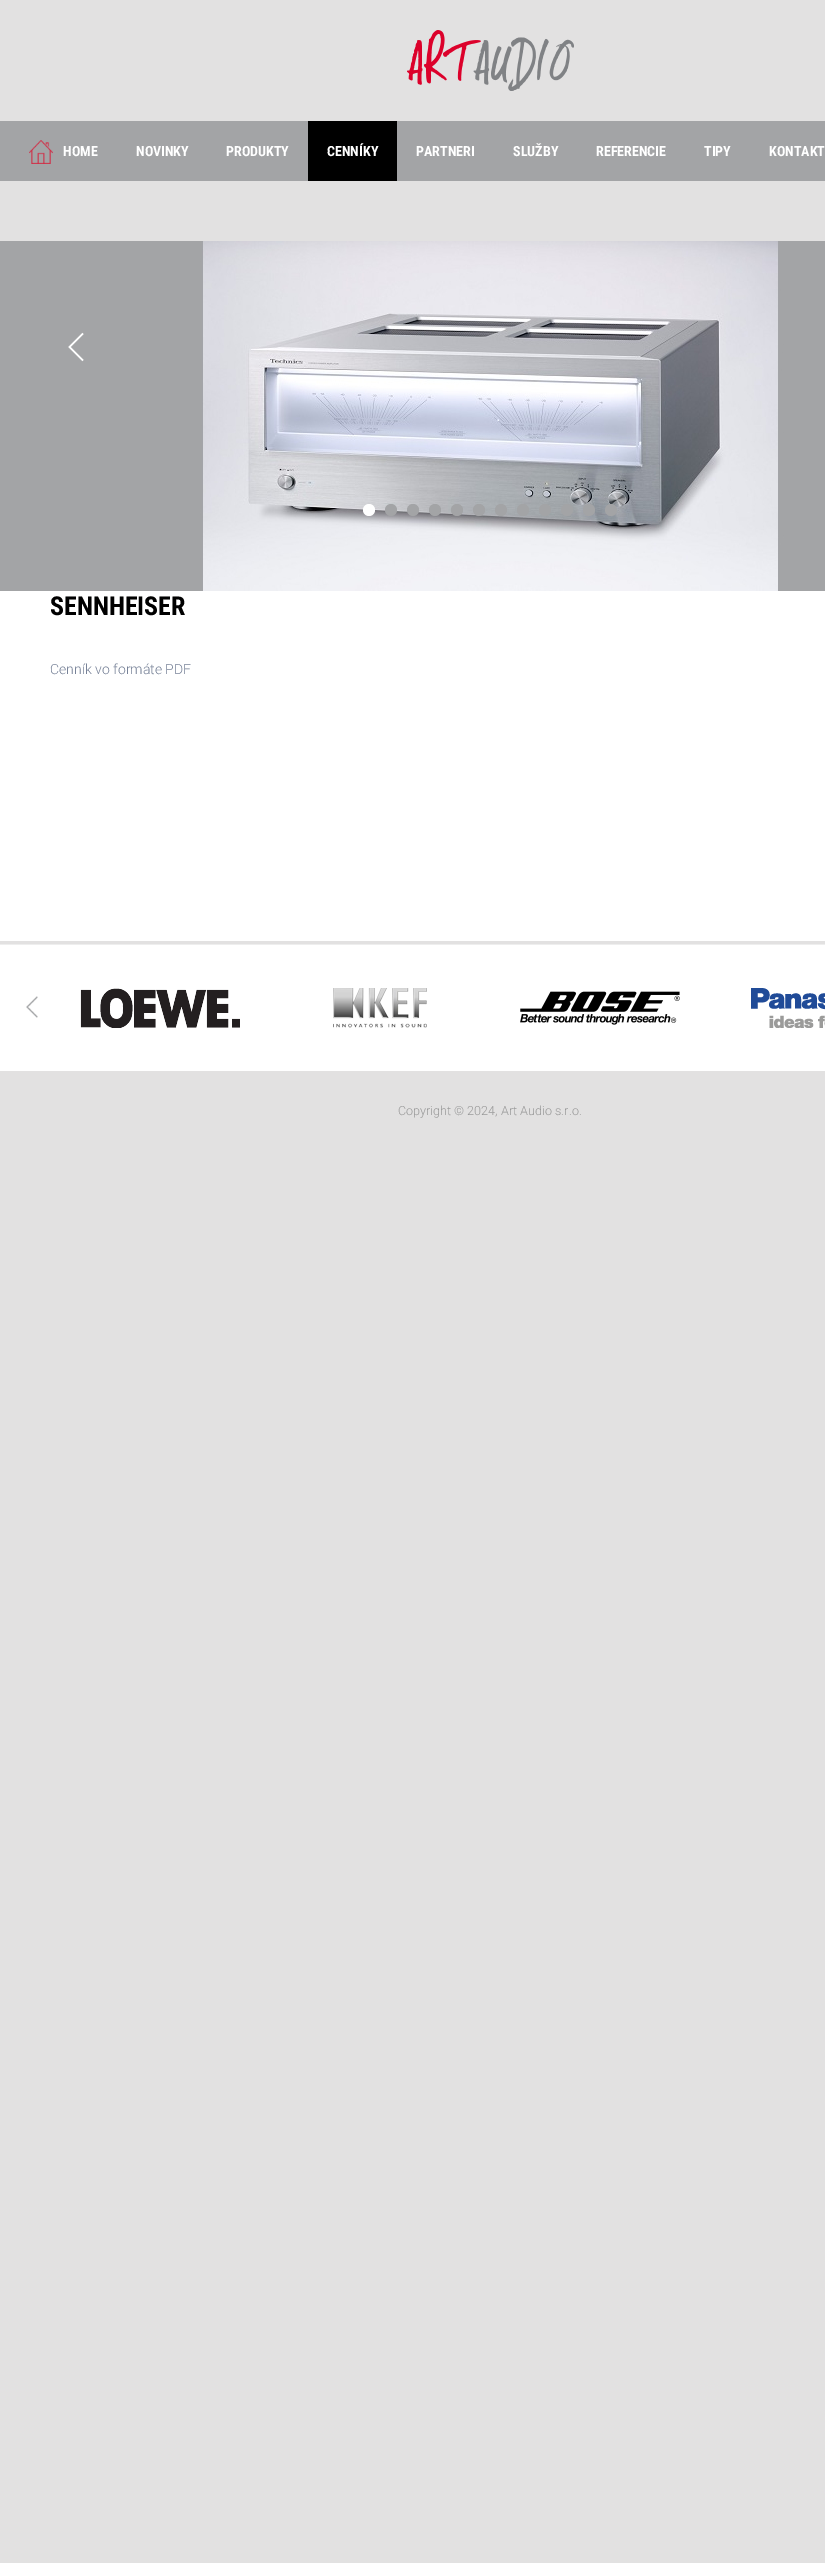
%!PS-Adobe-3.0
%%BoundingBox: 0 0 825 2563
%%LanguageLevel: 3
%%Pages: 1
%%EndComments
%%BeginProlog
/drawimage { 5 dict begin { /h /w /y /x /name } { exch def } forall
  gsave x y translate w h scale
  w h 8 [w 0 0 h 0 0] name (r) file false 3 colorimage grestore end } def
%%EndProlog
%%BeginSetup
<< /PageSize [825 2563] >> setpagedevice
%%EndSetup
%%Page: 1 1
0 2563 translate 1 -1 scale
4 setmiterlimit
0.886 0.882 0.882 setrgbcolor
0 0 825 2563 rectfill
(images/1.raw) 407 30 167 61 drawimage
0.639 0.643 0.651 setrgbcolor
0 121 825 60 rectfill
(images/2.raw) 29 140 24 24 drawimage
0 setgray
308 121 89 60 rectfill
(images/3.raw) 0 241 825 350 drawimage
(images/4.raw) 68 332 16 30 drawimage
1 setgray
newpath 369 510 6 0 360 arc closepath fill
0.639 0.643 0.651 setrgbcolor
newpath 391 510 6 0 360 arc closepath fill
newpath 413 510 6 0 360 arc closepath fill
newpath 435 510 6 0 360 arc closepath fill
newpath 457 510 6 0 360 arc closepath fill
newpath 479 510 6 0 360 arc closepath fill
newpath 501 510 6 0 360 arc closepath fill
newpath 523 510 6 0 360 arc closepath fill
newpath 545 510 6 0 360 arc closepath fill
newpath 567 510 6 0 360 arc closepath fill
newpath 589 510 6 0 360 arc closepath fill
newpath 611 510 6 0 360 arc closepath fill
1 setgray
0 591 825 350 rectfill
0 945 825 126 rectfill
0.933 setgray
0 944 825 1 rectfill
(images/5.raw) 26 996 12 22 drawimage
(images/6.raw) 80 988 160 40 drawimage
(images/7.raw) 333 988 94 40 drawimage
(images/8.raw) 520 991 160 34 drawimage
(images/9.raw) 751 988 74 40 drawimage
/RobotoCondensed-Bold [14 0 0 -14 0 0] selectfont
1 setgray
63 156 moveto (HOME) show
136 156 moveto (NOVINKY) show
226 156 moveto (PRODUKTY) show
327 156 moveto (CENNÍKY) show
416 156 moveto (PARTNERI) show
513 156 moveto (SLUŽBY) show
596 156 moveto (REFERENCIE) show
704 156 moveto (TIPY) show
769 156 moveto (KONTAKT) show
/RobotoCondensed-Bold [26 0 0 -26 0 0] selectfont
0 setgray
50 615 moveto (SENNHEISER) show
/Roboto-Light [14 0 0 -14 0 0] selectfont
0.467 0.51 0.596 setrgbcolor
50 674 moveto (Cenník vo formáte PDF) show
/Roboto-Light [12.6 0 0 -12.6 0 0] selectfont
0.6 setgray
398 1115 moveto (Copyright © 2024, Art Audio s.r.o.) show
showpage
%%EOF
